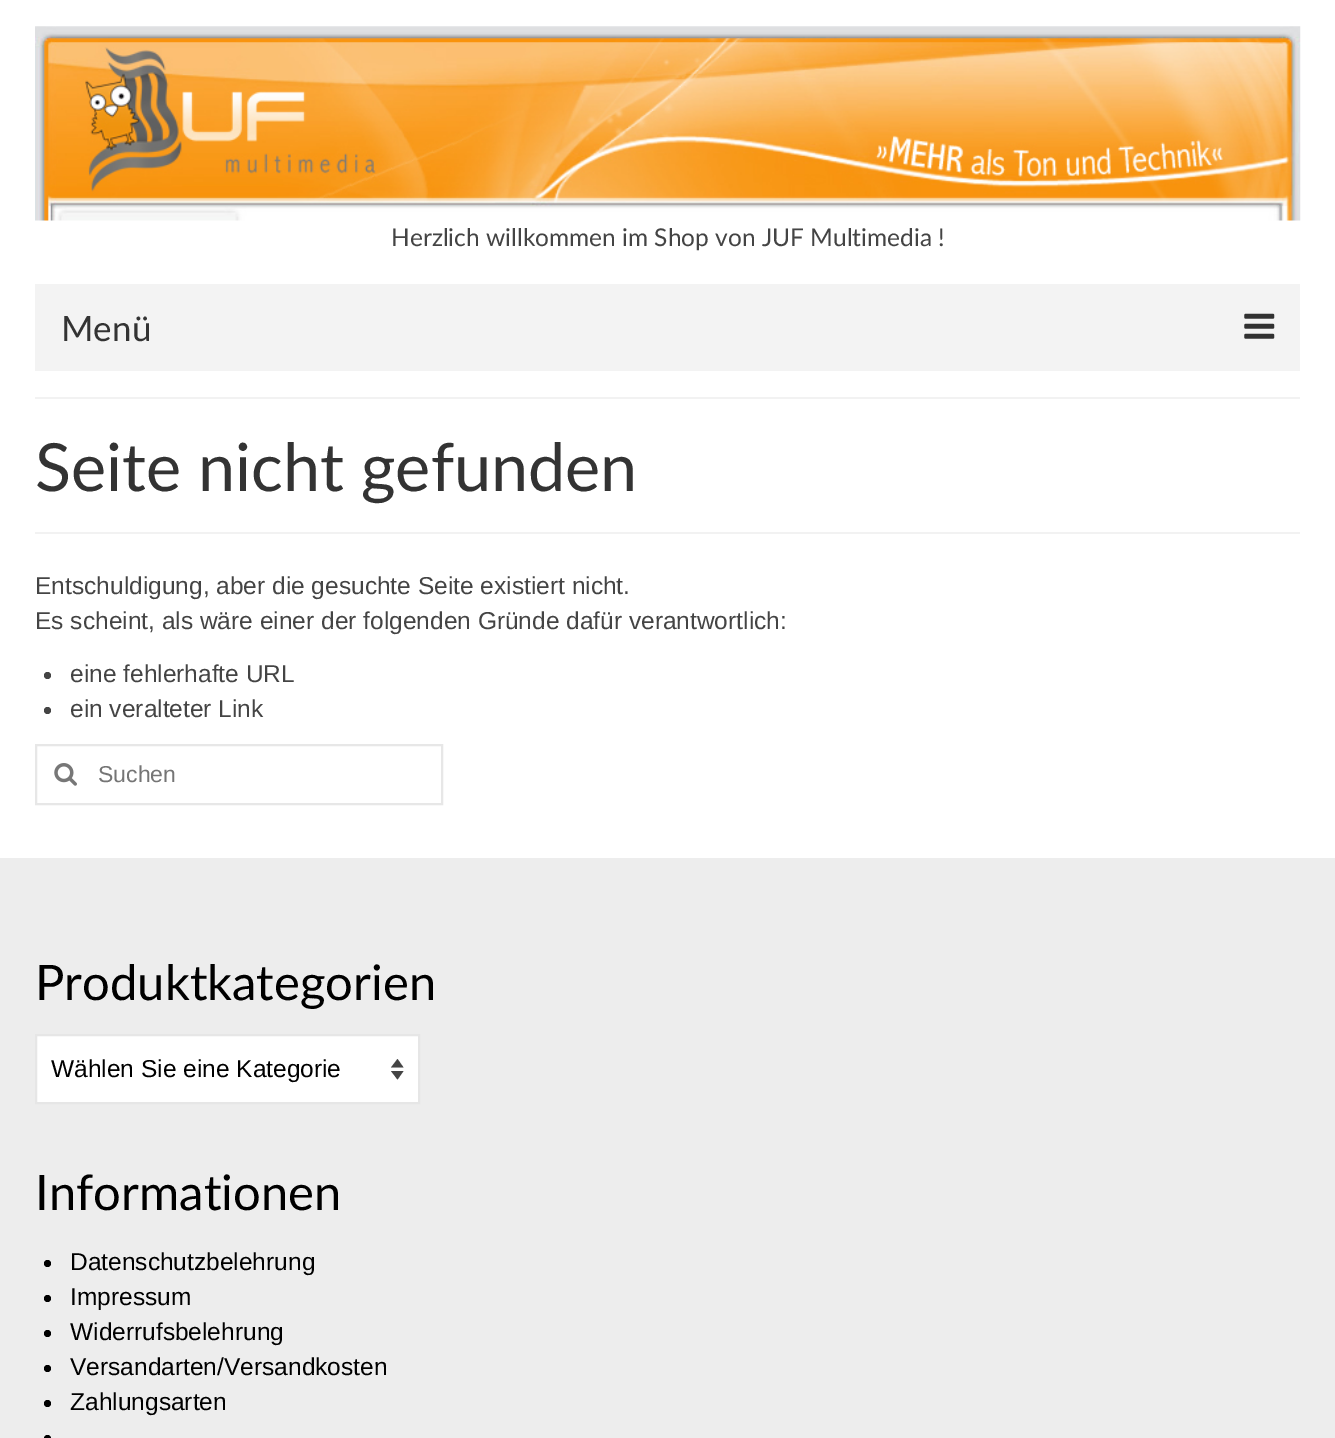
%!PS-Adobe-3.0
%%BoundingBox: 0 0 1335 1438
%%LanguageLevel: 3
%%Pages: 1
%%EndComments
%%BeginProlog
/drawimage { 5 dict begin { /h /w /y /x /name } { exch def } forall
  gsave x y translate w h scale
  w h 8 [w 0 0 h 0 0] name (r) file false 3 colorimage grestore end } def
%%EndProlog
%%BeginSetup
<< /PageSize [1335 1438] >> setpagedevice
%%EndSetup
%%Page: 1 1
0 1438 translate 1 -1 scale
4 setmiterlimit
1 setgray
0 0 1335 1438 rectfill
(images/1.raw) 35 26 1266 195 drawimage
0.953 setgray
35 284 1265 87 rectfill
(images/2.raw) 1244 313 31 26 drawimage
0.949 setgray
35 397 1265 2 rectfill
35 532 1265 2 rectfill
0.267 setgray
newpath 47.5 675.5 3.5 0 360 arc closepath fill
newpath 47.5 710.5 3.5 0 360 arc closepath fill
0.906 setgray
2 setlinewidth
36 745 406 59 rectstroke
(images/3.raw) 54 763 23 23 drawimage
0.929 setgray
0 858 1335 580 rectfill
1 setgray
37 1036 381 66 rectfill
0.267 setgray
newpath 391 1067.5 moveto 397.5 1059 lineto 403.5 1067.5 lineto closepath 403.5 1071 moveto 397.5 1079.5 lineto 391 1071 lineto closepath fill
0.902 setgray
36 1035 383 68 rectstroke
0 setgray
newpath 47.5 1263.5 3.5 0 360 arc closepath fill
newpath 47.5 1298.5 3.5 0 360 arc closepath fill
newpath 47.5 1333.5 3.5 0 360 arc closepath fill
newpath 47.5 1368.5 3.5 0 360 arc closepath fill
newpath 47.5 1403.5 3.5 0 360 arc closepath fill
newpath 47.5 1438.5 3.5 0 360 arc closepath fill
/Lato-Regular [24.5 0 0 -24.5 0 0] selectfont
0.267 setgray
391 246 moveto (Herzlich willkommen im Shop von JUF Multimedia !) show
/Lato-Regular [35 0 0 -35 0 0] selectfont
0.2 setgray
61 341 moveto (Menü) show
/Lato-Regular [66.5 0 0 -66.5 0 0] selectfont
35 491 moveto (Seite nicht gefunden) show
/LiberationSans-Regular [24.5 0 0 -24.5 0 0] selectfont
0.267 setgray
35 594 moveto (Entschuldigung, aber die gesuchte Seite existiert nicht.) show
35 629 moveto (Es scheint, als wäre einer der folgenden Gründe dafür verantwortlich:) show
70 682 moveto (eine fehlerhafte URL) show
70 717 moveto (ein veralteter Link) show
/LiberationSans-Regular [23 0 0 -23 0 0] selectfont
0.459 setgray
98 782 moveto (Suchen) show
/Lato-Regular [49 0 0 -49 0 0] selectfont
0 setgray
35 1000 moveto (Produktkategorien) show
/LiberationSans-Regular [24.5 0 0 -24.5 0 0] selectfont
51 1077 moveto (Wählen Sie eine Kategorie) show
/Lato-Regular [49 0 0 -49 0 0] selectfont
35 1210 moveto (Informationen) show
/LiberationSans-Regular [24.5 0 0 -24.5 0 0] selectfont
70 1270 moveto (Datenschutzbelehrung) show
70 1305 moveto (Impressum) show
70 1340 moveto (Widerrufsbelehrung) show
70 1375 moveto (Versandarten/Versandkosten) show
70 1410 moveto (Zahlungsarten) show
showpage
%%EOF
